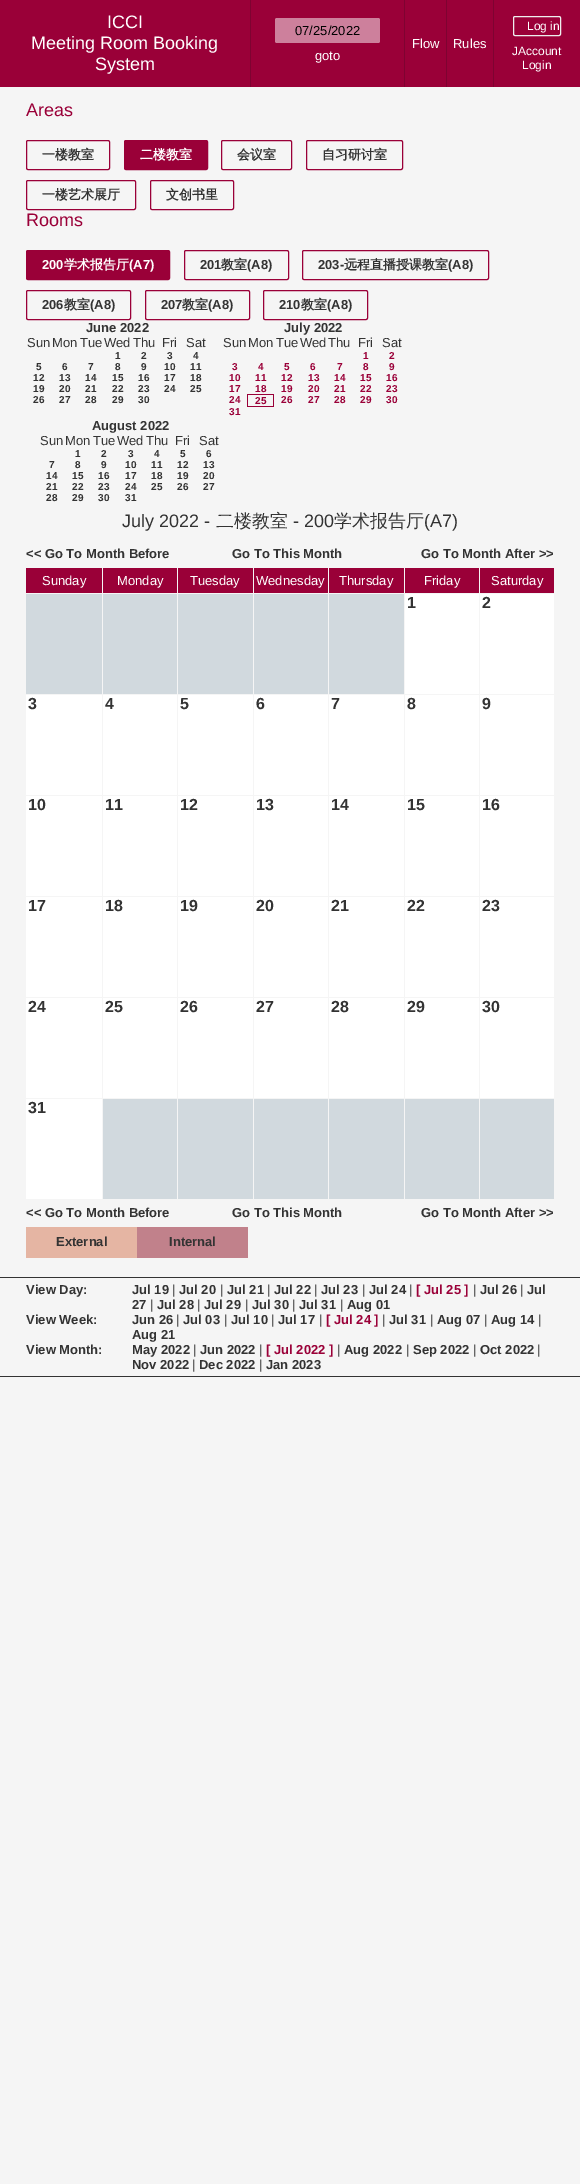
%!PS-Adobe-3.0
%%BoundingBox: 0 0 580 2184
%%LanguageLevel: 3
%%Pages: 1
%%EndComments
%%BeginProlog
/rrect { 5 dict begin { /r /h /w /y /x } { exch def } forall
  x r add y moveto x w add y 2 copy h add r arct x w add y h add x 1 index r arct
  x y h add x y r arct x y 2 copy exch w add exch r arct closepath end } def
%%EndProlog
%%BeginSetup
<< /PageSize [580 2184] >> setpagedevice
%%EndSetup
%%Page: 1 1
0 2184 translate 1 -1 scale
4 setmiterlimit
0.961 setgray
0 0 580 2184 rectfill
0.604 0 0.22 setrgbcolor
0 0 580 87 rectfill
0.494 0.012 0.192 setrgbcolor
250 0 1 87 rectfill
0.804 0.502 0.612 setrgbcolor
275 18 105 25 2 rrect fill
0.494 0.012 0.192 setrgbcolor
404 0 1 87 rectfill
446 0 1 87 rectfill
493 0 1 87 rectfill
0.933 setgray
513.5 16.5 47 19 1.5 rrect stroke
0.604 0 0.22 setrgbcolor
26.5 140.5 83 29 1.5 rrect stroke
124.5 140.5 83 29 1.5 rrect gsave fill grestore
stroke
221.5 140.5 70 29 1.5 rrect stroke
306.5 140.5 96 29 1.5 rrect stroke
26.5 180.5 109 29 1.5 rrect stroke
150.5 180.5 83 29 1.5 rrect stroke
26.5 250.5 143 29 1.5 rrect gsave fill grestore
stroke
184.5 250.5 104 29 1.5 rrect stroke
302.5 250.5 186 29 1.5 rrect stroke
26.5 290.5 104 29 1.5 rrect stroke
145.5 290.5 104 29 1.5 rrect stroke
263.5 290.5 104 29 1.5 rrect stroke
247 394 27 1 rectfill
273 394 1 13 rectfill
247 406 27 1 rectfill
247 394 1 13 rectfill
26 568 76 25 rectfill
103 568 74 25 rectfill
178 568 75 25 rectfill
254 568 74 25 rectfill
329 568 75 25 rectfill
405 568 74 25 rectfill
480 568 74 25 rectfill
0.82 0.851 0.871 setrgbcolor
26 594 76 100 rectfill
103 594 74 100 rectfill
178 594 75 100 rectfill
254 594 74 100 rectfill
329 594 75 100 rectfill
1 setgray
405 594 74 100 rectfill
480 594 74 100 rectfill
26 695 76 100 rectfill
103 695 74 100 rectfill
178 695 75 100 rectfill
254 695 74 100 rectfill
329 695 75 100 rectfill
405 695 74 100 rectfill
480 695 74 100 rectfill
26 796 76 100 rectfill
103 796 74 100 rectfill
178 796 75 100 rectfill
254 796 74 100 rectfill
329 796 75 100 rectfill
405 796 74 100 rectfill
480 796 74 100 rectfill
26 897 76 100 rectfill
103 897 74 100 rectfill
178 897 75 100 rectfill
254 897 74 100 rectfill
329 897 75 100 rectfill
405 897 74 100 rectfill
480 897 74 100 rectfill
26 998 76 100 rectfill
103 998 74 100 rectfill
178 998 75 100 rectfill
254 998 74 100 rectfill
329 998 75 100 rectfill
405 998 74 100 rectfill
480 998 74 100 rectfill
26 1099 76 100 rectfill
0.82 0.851 0.871 setrgbcolor
103 1099 74 100 rectfill
178 1099 75 100 rectfill
254 1099 74 100 rectfill
329 1099 75 100 rectfill
405 1099 74 100 rectfill
480 1099 74 100 rectfill
0.898 0.71 0.639 setrgbcolor
26 1227 111 31 rectfill
0.757 0.506 0.545 setrgbcolor
137 1227 111 31 rectfill
0.2 setgray
0 1277 580 1 rectfill
0 1376 580 1 rectfill
/LiberationSans-Regular [18 0 0 -18 0 0] selectfont
1 setgray
107 28 moveto (ICCI) show
31 49 moveto (Meeting Room Booking) show
95 70 moveto (System) show
/LiberationSans-Regular [13 0 0 -13 0 0] selectfont
0 setgray
295 35 moveto (07/25/2022) show
1 setgray
315 60 moveto (goto) show
412 48 moveto (Flow) show
453 48 moveto (Rules) show
/LiberationSans-Regular [12 0 0 -12 0 0] selectfont
527 30 moveto (Log in) show
512 55 moveto (JAccount) show
522 69 moveto (Login) show
/LiberationSans-Regular [18 0 0 -18 0 0] selectfont
0.604 0 0.22 setrgbcolor
26 116 moveto (Areas) show
/WenQuanYiZenHei-Bold [13 0 0 -13 0 0] selectfont
0.2 setgray
42 159 moveto (一楼教室) show
1 setgray
140 159 moveto (二楼教室) show
0.2 setgray
237 159 moveto (会议室) show
322 159 moveto (自习研讨室) show
42 199 moveto (一楼艺术展厅) show
166 199 moveto (文创书里) show
/LiberationSans-Regular [18 0 0 -18 0 0] selectfont
0.604 0 0.22 setrgbcolor
26 226 moveto (Rooms) show
/LiberationSans-Bold [13 0 0 -13 0 0] selectfont
1 setgray
42 269 moveto (200) show
/WenQuanYiZenHei-Bold [13 0 0 -13 0 0] selectfont
64 269 moveto (学术报告厅) show
/LiberationSans-Bold [13 0 0 -13 0 0] selectfont
129 269 moveto (\(A7\)) show
0.2 setgray
200 269 moveto (201) show
/WenQuanYiZenHei-Bold [13 0 0 -13 0 0] selectfont
221 269 moveto (教室) show
/LiberationSans-Bold [13 0 0 -13 0 0] selectfont
247 269 moveto (\(A8\)) show
318 269 moveto (203-) show
/WenQuanYiZenHei-Bold [13 0 0 -13 0 0] selectfont
344 269 moveto (远程直播授课教室) show
/LiberationSans-Bold [13 0 0 -13 0 0] selectfont
448 269 moveto (\(A8\)) show
42 309 moveto (206) show
/WenQuanYiZenHei-Bold [13 0 0 -13 0 0] selectfont
64 309 moveto (教室) show
/LiberationSans-Bold [13 0 0 -13 0 0] selectfont
90 309 moveto (\(A8\)) show
161 309 moveto (207) show
/WenQuanYiZenHei-Bold [13 0 0 -13 0 0] selectfont
182 309 moveto (教室) show
/LiberationSans-Bold [13 0 0 -13 0 0] selectfont
208 309 moveto (\(A8\)) show
279 309 moveto (210) show
/WenQuanYiZenHei-Bold [13 0 0 -13 0 0] selectfont
301 309 moveto (教室) show
/LiberationSans-Bold [13 0 0 -13 0 0] selectfont
327 309 moveto (\(A8\)) show
86 332 moveto (June 2022) show
/LiberationSans-Regular [13 0 0 -13 0 0] selectfont
27 347 moveto (Sun) show
52 347 moveto (Mon) show
80 347 moveto (Tue) show
104 347 moveto (Wed) show
133 347 moveto (Thu) show
162 347 moveto (Fri) show
186 347 moveto (Sat) show
/LiberationSans-Bold [10 0 0 -10 0 0] selectfont
115 359 moveto (1) show
141 359 moveto (2) show
167 359 moveto (3) show
193 359 moveto (4) show
36 370 moveto (5) show
62 370 moveto (6) show
88 370 moveto (7) show
115 370 moveto (8) show
141 370 moveto (9) show
164 370 moveto (10) show
190 370 moveto (11) show
33 381 moveto (12) show
59 381 moveto (13) show
85 381 moveto (14) show
112 381 moveto (15) show
138 381 moveto (16) show
164 381 moveto (17) show
190 381 moveto (18) show
33 392 moveto (19) show
59 392 moveto (20) show
85 392 moveto (21) show
112 392 moveto (22) show
138 392 moveto (23) show
164 392 moveto (24) show
190 392 moveto (25) show
33 403 moveto (26) show
59 403 moveto (27) show
85 403 moveto (28) show
112 403 moveto (29) show
138 403 moveto (30) show
/LiberationSans-Bold [13 0 0 -13 0 0] selectfont
284 332 moveto (July 2022) show
/LiberationSans-Regular [13 0 0 -13 0 0] selectfont
223 347 moveto (Sun) show
248 347 moveto (Mon) show
276 347 moveto (Tue) show
300 347 moveto (Wed) show
328 347 moveto (Thu) show
358 347 moveto (Fri) show
382 347 moveto (Sat) show
/LiberationSans-Bold [10 0 0 -10 0 0] selectfont
0.604 0 0.22 setrgbcolor
363 359 moveto (1) show
389 359 moveto (2) show
232 370 moveto (3) show
258 370 moveto (4) show
284 370 moveto (5) show
310 370 moveto (6) show
337 370 moveto (7) show
363 370 moveto (8) show
389 370 moveto (9) show
229 381 moveto (10) show
255 381 moveto (11) show
281 381 moveto (12) show
308 381 moveto (13) show
334 381 moveto (14) show
360 381 moveto (15) show
386 381 moveto (16) show
229 392 moveto (17) show
255 392 moveto (18) show
281 392 moveto (19) show
308 392 moveto (20) show
334 392 moveto (21) show
360 392 moveto (22) show
386 392 moveto (23) show
229 403 moveto (24) show
255 404 moveto (25) show
281 403 moveto (26) show
308 403 moveto (27) show
334 403 moveto (28) show
360 403 moveto (29) show
386 403 moveto (30) show
229 415 moveto (31) show
/LiberationSans-Bold [13 0 0 -13 0 0] selectfont
0.2 setgray
92 430 moveto (August 2022) show
/LiberationSans-Regular [13 0 0 -13 0 0] selectfont
40 445 moveto (Sun) show
65 445 moveto (Mon) show
93 445 moveto (Tue) show
117 445 moveto (Wed) show
146 445 moveto (Thu) show
175 445 moveto (Fri) show
199 445 moveto (Sat) show
/LiberationSans-Bold [10 0 0 -10 0 0] selectfont
75 457 moveto (1) show
101 457 moveto (2) show
128 457 moveto (3) show
154 457 moveto (4) show
180 457 moveto (5) show
206 457 moveto (6) show
49 468 moveto (7) show
75 468 moveto (8) show
101 468 moveto (9) show
125 468 moveto (10) show
151 468 moveto (11) show
177 468 moveto (12) show
203 468 moveto (13) show
46 479 moveto (14) show
72 479 moveto (15) show
98 479 moveto (16) show
125 479 moveto (17) show
151 479 moveto (18) show
177 479 moveto (19) show
203 479 moveto (20) show
46 490 moveto (21) show
72 490 moveto (22) show
98 490 moveto (23) show
125 490 moveto (24) show
151 490 moveto (25) show
177 490 moveto (26) show
203 490 moveto (27) show
46 501 moveto (28) show
72 501 moveto (29) show
98 501 moveto (30) show
125 501 moveto (31) show
/LiberationSans-Regular [18 0 0 -18 0 0] selectfont
122 527 moveto (July 2022 -) show
/WenQuanYiZenHei-Medium [18 0 0 -18 0 0] selectfont
216 527 moveto (二楼教室) show
/LiberationSans-Regular [18 0 0 -18 0 0] selectfont
293 527 moveto (- 200) show
/WenQuanYiZenHei-Medium [18 0 0 -18 0 0] selectfont
334 527 moveto (学术报告厅) show
/LiberationSans-Regular [18 0 0 -18 0 0] selectfont
424 527 moveto (\(A7\)) show
/LiberationSans-Bold [13 0 0 -13 0 0] selectfont
26 558 moveto (<< Go To Month Before) show
232 558 moveto (Go To This Month) show
421 558 moveto (Go To Month After >>) show
/LiberationSans-Regular [13 0 0 -13 0 0] selectfont
1 setgray
42 585 moveto (Sunday) show
117 585 moveto (Monday) show
190 585 moveto (Tuesday) show
256 585 moveto (Wednesday) show
339 585 moveto (Thursday) show
424 585 moveto (Friday) show
491 585 moveto (Saturday) show
/LiberationSans-Bold [16 0 0 -16 0 0] selectfont
0.2 setgray
407 608 moveto (1) show
482 608 moveto (2) show
28 709 moveto (3) show
105 709 moveto (4) show
180 709 moveto (5) show
256 709 moveto (6) show
331 709 moveto (7) show
407 709 moveto (8) show
482 709 moveto (9) show
28 810 moveto (10) show
105 810 moveto (11) show
180 810 moveto (12) show
256 810 moveto (13) show
331 810 moveto (14) show
407 810 moveto (15) show
482 810 moveto (16) show
28 911 moveto (17) show
105 911 moveto (18) show
180 911 moveto (19) show
256 911 moveto (20) show
331 911 moveto (21) show
407 911 moveto (22) show
482 911 moveto (23) show
28 1012 moveto (24) show
105 1012 moveto (25) show
180 1012 moveto (26) show
256 1012 moveto (27) show
331 1012 moveto (28) show
407 1012 moveto (29) show
482 1012 moveto (30) show
28 1113 moveto (31) show
/LiberationSans-Bold [13 0 0 -13 0 0] selectfont
26 1217 moveto (<< Go To Month Before) show
232 1217 moveto (Go To This Month) show
421 1217 moveto (Go To Month After >>) show
56 1246 moveto (External) show
169 1246 moveto (Internal) show
26 1294 moveto (View Day:) show
132 1294 moveto (Jul 19) show
/LiberationSans-Regular [13 0 0 -13 0 0] selectfont
172 1294 moveto (|) show
/LiberationSans-Bold [13 0 0 -13 0 0] selectfont
179 1294 moveto (Jul 20) show
/LiberationSans-Regular [13 0 0 -13 0 0] selectfont
220 1294 moveto (|) show
/LiberationSans-Bold [13 0 0 -13 0 0] selectfont
227 1294 moveto (Jul 21) show
/LiberationSans-Regular [13 0 0 -13 0 0] selectfont
267 1294 moveto (|) show
/LiberationSans-Bold [13 0 0 -13 0 0] selectfont
274 1294 moveto (Jul 22) show
/LiberationSans-Regular [13 0 0 -13 0 0] selectfont
314 1294 moveto (|) show
/LiberationSans-Bold [13 0 0 -13 0 0] selectfont
321 1294 moveto (Jul 23) show
/LiberationSans-Regular [13 0 0 -13 0 0] selectfont
362 1294 moveto (|) show
/LiberationSans-Bold [13 0 0 -13 0 0] selectfont
369 1294 moveto (Jul 24) show
/LiberationSans-Regular [13 0 0 -13 0 0] selectfont
409 1294 moveto (|) show
/LiberationSans-Bold [13 0 0 -13 0 0] selectfont
0.604 0 0.22 setrgbcolor
416 1294 moveto ([ Jul 25 ]) show
/LiberationSans-Regular [13 0 0 -13 0 0] selectfont
0.2 setgray
473 1294 moveto (|) show
/LiberationSans-Bold [13 0 0 -13 0 0] selectfont
480 1294 moveto (Jul 26) show
/LiberationSans-Regular [13 0 0 -13 0 0] selectfont
520 1294 moveto (|) show
/LiberationSans-Bold [13 0 0 -13 0 0] selectfont
527 1294 moveto (Jul) show
132 1309 moveto (27) show
/LiberationSans-Regular [13 0 0 -13 0 0] selectfont
150 1309 moveto (|) show
/LiberationSans-Bold [13 0 0 -13 0 0] selectfont
157 1309 moveto (Jul 28) show
/LiberationSans-Regular [13 0 0 -13 0 0] selectfont
197 1309 moveto (|) show
/LiberationSans-Bold [13 0 0 -13 0 0] selectfont
204 1309 moveto (Jul 29) show
/LiberationSans-Regular [13 0 0 -13 0 0] selectfont
245 1309 moveto (|) show
/LiberationSans-Bold [13 0 0 -13 0 0] selectfont
252 1309 moveto (Jul 30) show
/LiberationSans-Regular [13 0 0 -13 0 0] selectfont
292 1309 moveto (|) show
/LiberationSans-Bold [13 0 0 -13 0 0] selectfont
299 1309 moveto (Jul 31) show
/LiberationSans-Regular [13 0 0 -13 0 0] selectfont
340 1309 moveto (|) show
/LiberationSans-Bold [13 0 0 -13 0 0] selectfont
347 1309 moveto (Aug 01) show
26 1324 moveto (View Week:) show
132 1324 moveto (Jun 26) show
/LiberationSans-Regular [13 0 0 -13 0 0] selectfont
176 1324 moveto (|) show
/LiberationSans-Bold [13 0 0 -13 0 0] selectfont
183 1324 moveto (Jul 03) show
/LiberationSans-Regular [13 0 0 -13 0 0] selectfont
224 1324 moveto (|) show
/LiberationSans-Bold [13 0 0 -13 0 0] selectfont
231 1324 moveto (Jul 10) show
/LiberationSans-Regular [13 0 0 -13 0 0] selectfont
271 1324 moveto (|) show
/LiberationSans-Bold [13 0 0 -13 0 0] selectfont
278 1324 moveto (Jul 17) show
/LiberationSans-Regular [13 0 0 -13 0 0] selectfont
319 1324 moveto (|) show
/LiberationSans-Bold [13 0 0 -13 0 0] selectfont
0.604 0 0.22 setrgbcolor
326 1324 moveto ([ Jul 24 ]) show
/LiberationSans-Regular [13 0 0 -13 0 0] selectfont
0.2 setgray
382 1324 moveto (|) show
/LiberationSans-Bold [13 0 0 -13 0 0] selectfont
389 1324 moveto (Jul 31) show
/LiberationSans-Regular [13 0 0 -13 0 0] selectfont
430 1324 moveto (|) show
/LiberationSans-Bold [13 0 0 -13 0 0] selectfont
437 1324 moveto (Aug 07) show
/LiberationSans-Regular [13 0 0 -13 0 0] selectfont
484 1324 moveto (|) show
/LiberationSans-Bold [13 0 0 -13 0 0] selectfont
491 1324 moveto (Aug 14) show
/LiberationSans-Regular [13 0 0 -13 0 0] selectfont
538 1324 moveto (|) show
/LiberationSans-Bold [13 0 0 -13 0 0] selectfont
132 1339 moveto (Aug 21) show
26 1354 moveto (View Month:) show
132 1354 moveto (May 2022) show
/LiberationSans-Regular [13 0 0 -13 0 0] selectfont
193 1354 moveto (|) show
/LiberationSans-Bold [13 0 0 -13 0 0] selectfont
200 1354 moveto (Jun 2022) show
/LiberationSans-Regular [13 0 0 -13 0 0] selectfont
259 1354 moveto (|) show
/LiberationSans-Bold [13 0 0 -13 0 0] selectfont
0.604 0 0.22 setrgbcolor
266 1354 moveto ([ Jul 2022 ]) show
/LiberationSans-Regular [13 0 0 -13 0 0] selectfont
0.2 setgray
337 1354 moveto (|) show
/LiberationSans-Bold [13 0 0 -13 0 0] selectfont
344 1354 moveto (Aug 2022) show
/LiberationSans-Regular [13 0 0 -13 0 0] selectfont
406 1354 moveto (|) show
/LiberationSans-Bold [13 0 0 -13 0 0] selectfont
413 1354 moveto (Sep 2022) show
/LiberationSans-Regular [13 0 0 -13 0 0] selectfont
473 1354 moveto (|) show
/LiberationSans-Bold [13 0 0 -13 0 0] selectfont
480 1354 moveto (Oct 2022) show
/LiberationSans-Regular [13 0 0 -13 0 0] selectfont
537 1354 moveto (|) show
/LiberationSans-Bold [13 0 0 -13 0 0] selectfont
132 1369 moveto (Nov 2022) show
/LiberationSans-Regular [13 0 0 -13 0 0] selectfont
192 1369 moveto (|) show
/LiberationSans-Bold [13 0 0 -13 0 0] selectfont
199 1369 moveto (Dec 2022) show
/LiberationSans-Regular [13 0 0 -13 0 0] selectfont
259 1369 moveto (|) show
/LiberationSans-Bold [13 0 0 -13 0 0] selectfont
266 1369 moveto (Jan 2023) show
showpage
%%EOF
